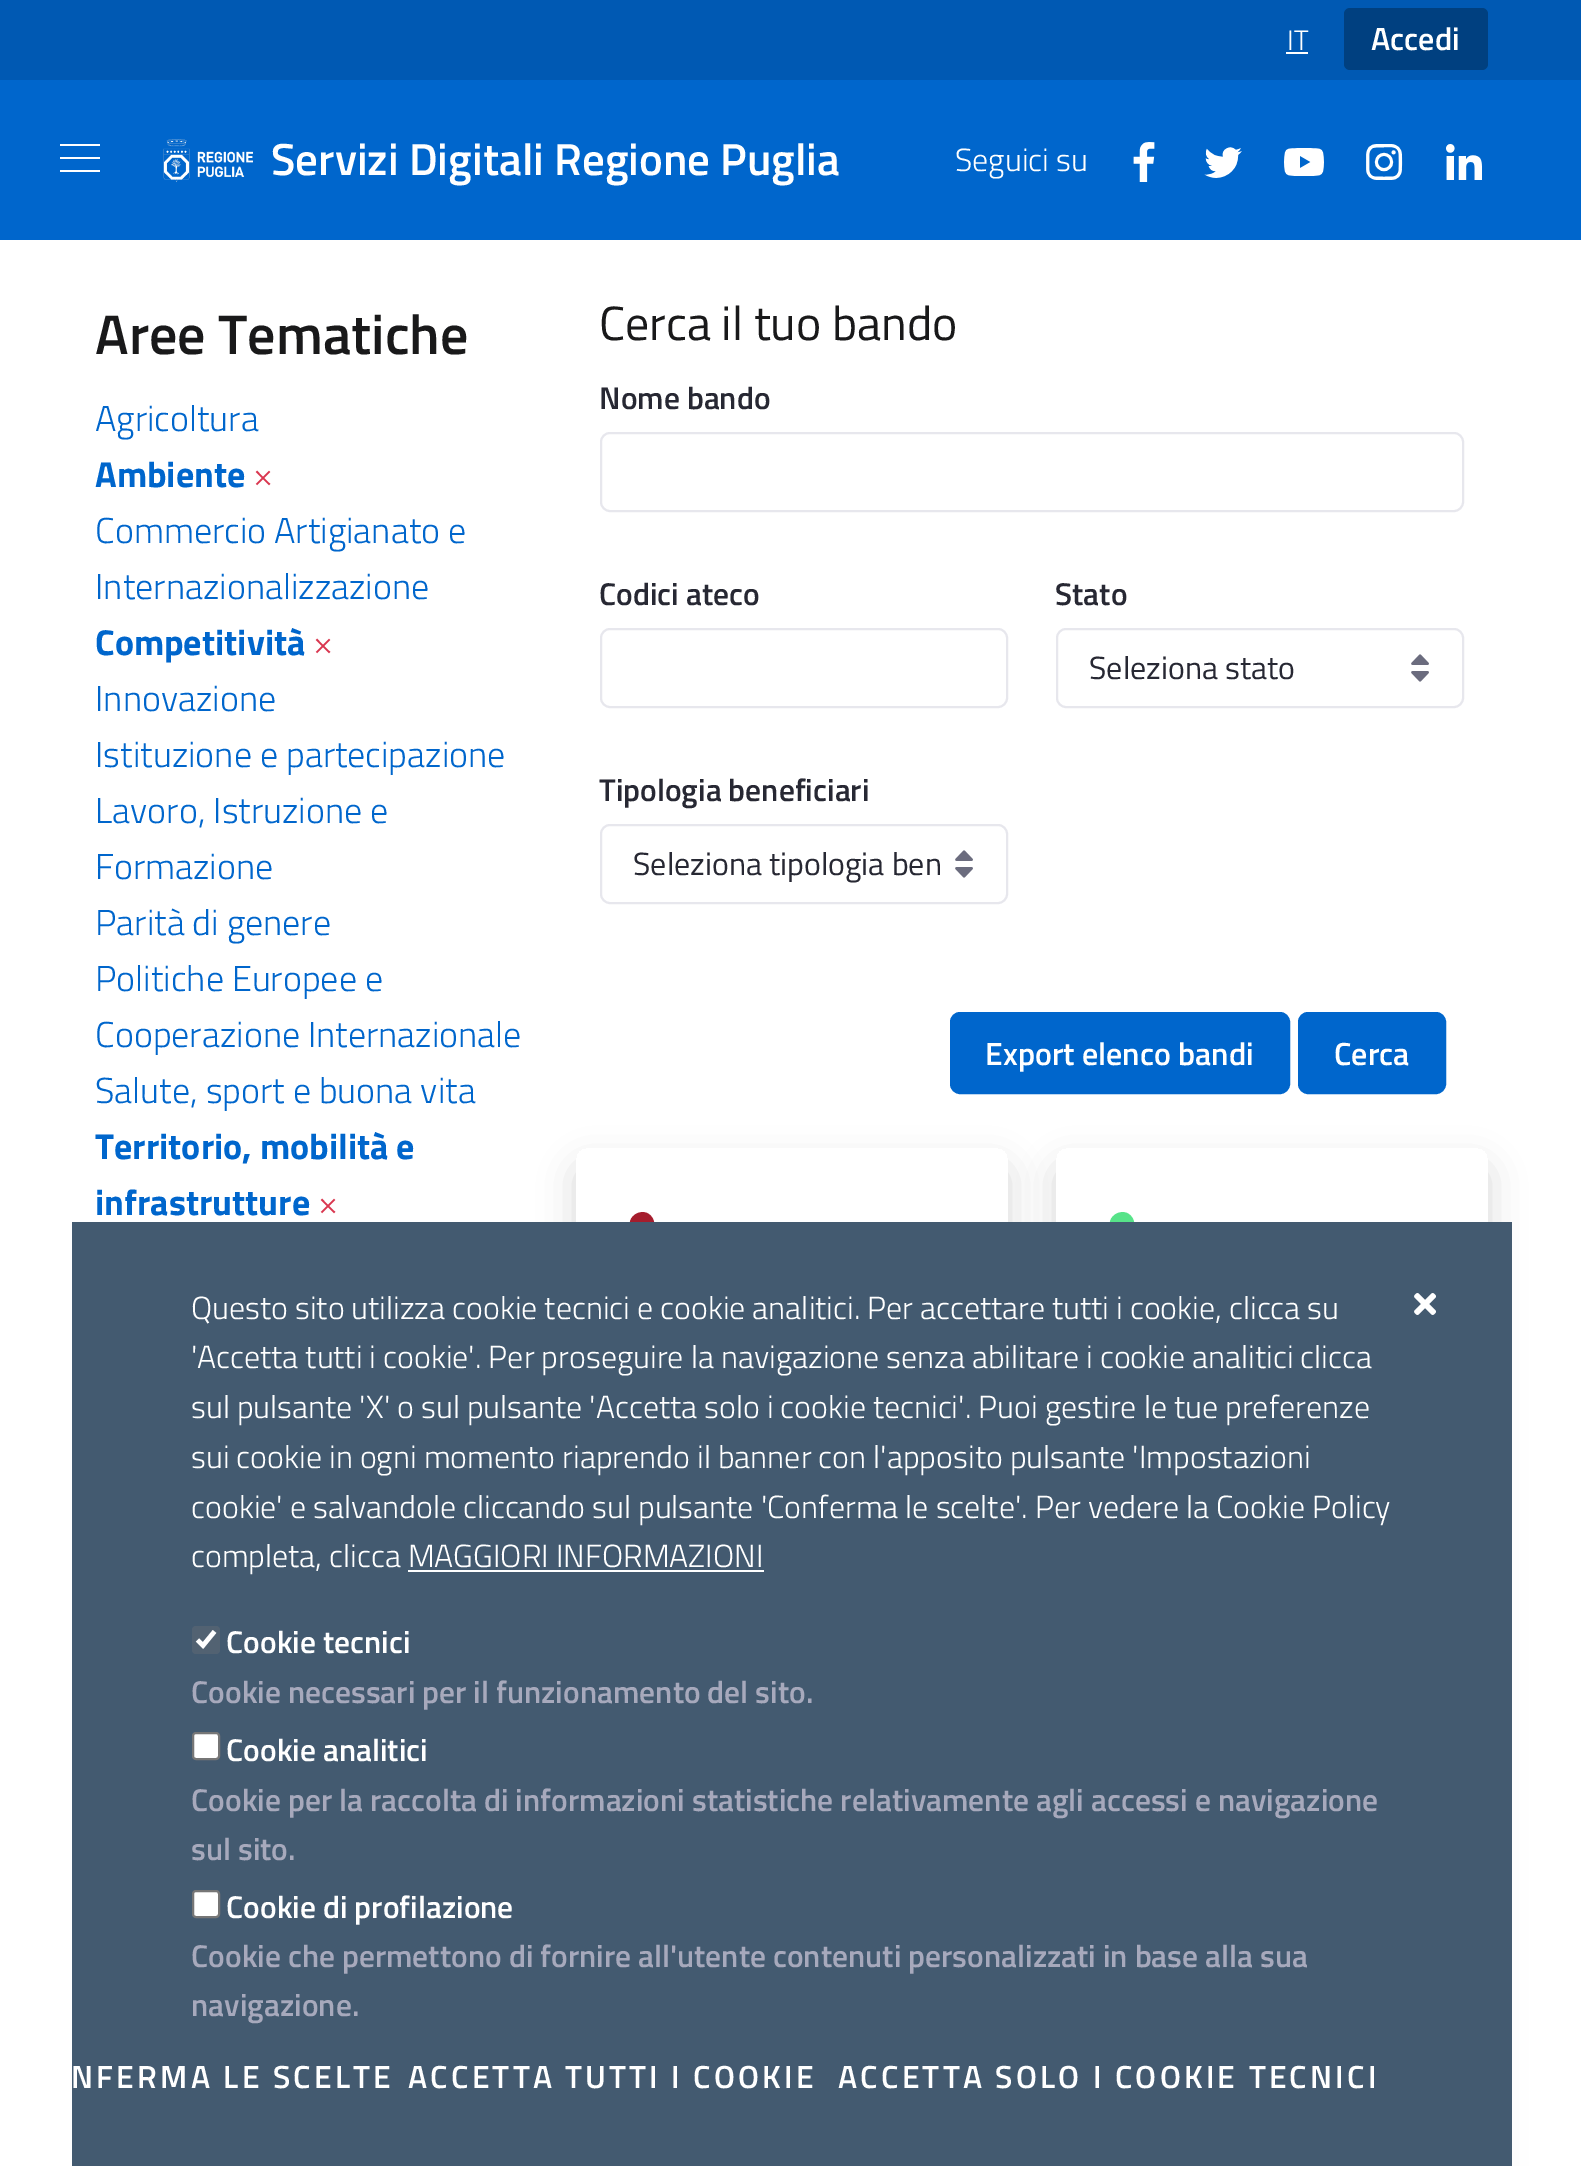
%!PS-Adobe-3.0
%%BoundingBox: 0 0 1581 2166
%%LanguageLevel: 3
%%Pages: 1
%%EndComments
%%BeginProlog
/setalpha { dup .setfillconstantalpha .setstrokeconstantalpha } def
/rrect { 5 dict begin { /r /h /w /y /x } { exch def } forall
  x r add y moveto x w add y 2 copy h add r arct x w add y h add x 1 index r arct
  x y h add x y r arct x y 2 copy exch w add exch r arct closepath end } def
/softshadow { 12 dict begin { /a /b /q /h /w /y /x } { exch def } forall gsave /was 0 def
  9 -2 -9 { dup b mul 4 div /e exch def 1 sub .425 mul 2.718 exch exp 1 add a .99 .min exch div /now exch def
    1 1 now sub 1 was sub div sub setalpha /was now def
    w h .min e 2 mul add 0 gt { x e sub y e sub w e 2 mul add h e 2 mul add
      q e add b .6 mul add w h .min 2 div e add .min 0 .max rrect fill } if } for grestore end } def
/drawimage { 5 dict begin { /h /w /y /x /name } { exch def } forall
  gsave x y translate w h scale
  w h 8 [w 0 0 h 0 0] name (r) file false 3 colorimage grestore end } def
%%EndProlog
%%BeginSetup
<< /PageSize [1581 2166] /PageUsesTransparency true >> setpagedevice
%%EndSetup
%%Page: 1 1
0 .pushpdf14devicefilter
0 2166 translate 1 -1 scale
4 setmiterlimit
1 setgray
0 0 1581 2166 rectfill
0 0.349 0.702 setrgbcolor
0 0 1581 80 rectfill
1 setgray
1286 52 22 2 rectfill
0 0.251 0.502 setrgbcolor
1344 8 144 62 6 rrect fill
0 0.4 0.8 setrgbcolor
0 80 1581 160 rectfill
(images/1.raw) 60 144 40 28 drawimage
(images/2.raw) 163 139 90 43 drawimage
(images/3.raw) 1133 142 22 40 drawimage
(images/4.raw) 1204 147 38 31 drawimage
(images/5.raw) 1284 148 40 28 drawimage
(images/6.raw) 1366 144 37 36 drawimage
(images/7.raw) 1446 144 36 36 drawimage
0.906 0.906 0.929 setrgbcolor
2 setlinewidth
601 433 862 78 9 rrect stroke
601 629 406 78 9 rrect stroke
(images/8.raw) 1411 654 18 28 drawimage
1057 629 406 78 9 rrect stroke
(images/8.raw) 955 850 18 28 drawimage
601 825 406 78 9 rrect stroke
0 0.4 0.8 setrgbcolor
951 1013 338 80 9 rrect gsave fill grestore
stroke
1299 1013 146 80 9 rrect gsave fill grestore
stroke
gsave
newpath 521 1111 moveto 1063 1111 lineto 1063 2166 lineto 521 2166 lineto closepath 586 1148 moveto 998 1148 lineto 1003.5 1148 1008 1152.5 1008 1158 curveto 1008 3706 lineto 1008 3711.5 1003.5 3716 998 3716 curveto 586 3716 lineto 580.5 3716 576 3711.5 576 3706 curveto 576 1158 lineto 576 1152.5 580.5 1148 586 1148 curveto closepath eoclip newpath
0 setgray
576 1166 432 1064 10 18 0.15 softshadow
grestore
0.647 0.114 0.176 setrgbcolor
newpath 652.5 1218 moveto 660.5 1231.5 639.5 1243.5 631.5 1230 curveto 623.5 1216.5 644.5 1204.5 652.5 1218 curveto closepath fill
gsave
newpath 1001 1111 moveto 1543 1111 lineto 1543 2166 lineto 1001 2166 lineto closepath 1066 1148 moveto 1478 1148 lineto 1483.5 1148 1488 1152.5 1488 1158 curveto 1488 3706 lineto 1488 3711.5 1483.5 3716 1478 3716 curveto 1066 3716 lineto 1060.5 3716 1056 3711.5 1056 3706 curveto 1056 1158 lineto 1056 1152.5 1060.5 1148 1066 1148 curveto closepath eoclip newpath
0 setgray
1056 1166 432 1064 10 18 0.15 softshadow
grestore
0.341 0.89 0.537 setrgbcolor
newpath 1132.5 1218 moveto 1140.5 1231.5 1119.5 1243.5 1111.5 1230 curveto 1103.5 1216.5 1124.5 1204.5 1132.5 1218 curveto closepath fill
0.263 0.353 0.439 setrgbcolor
72 1222 1440 944 rectfill
1 setgray
408 1570 356 2 rectfill
(images/9.raw) 1414 1293 22 22 drawimage
0.322 0.384 0.447 setrgbcolor
192 1626 28 28 4 rrect fill
1 setgray
4.5 setlinewidth
newpath 197.5 1640 moveto 203 1645.5 lineto 214.5 1631.5 lineto stroke
193 1733 26 26 3 rrect gsave fill grestore
0.463 setgray
2 setlinewidth
stroke
1 setgray
193 1891 26 26 3 rrect gsave fill grestore
0.463 setgray
stroke
/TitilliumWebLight-Light [28 0 0 -28 0 0] selectfont
1 setgray
1287 50 moveto (IT) show
/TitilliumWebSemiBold-SemiBold [32 0 0 -32 0 0] selectfont
1371 50 moveto (Accedi) show
/TitilliumWebSemiBold-SemiBold [45 0 0 -45 0 0] selectfont
271 175 moveto (Servizi Digitali Regione Puglia) show
/TitilliumWebLight-Light [32 0 0 -32 0 0] selectfont
955 171 moveto (Seguici su) show
/TitilliumWebSemiBold-SemiBold [56 0 0 -56 0 0] selectfont
0.098 0.098 0.102 setrgbcolor
95 354 moveto (Aree Tematiche) show
/TitilliumWebLight-Light [36 0 0 -36 0 0] selectfont
0 0.4 0.8 setrgbcolor
95 431 moveto (Agricoltura) show
/TitilliumWeb-Bold [36 0 0 -36 0 0] selectfont
95 487 moveto (Ambiente) show
/TitilliumWebLight-Light [36 0 0 -36 0 0] selectfont
0.851 0.212 0.31 setrgbcolor
253 487 moveto (×) show
0 0.4 0.8 setrgbcolor
95 543 moveto (Commercio Artigianato e) show
95 599 moveto (Internazionalizzazione) show
/TitilliumWeb-Bold [36 0 0 -36 0 0] selectfont
95 655 moveto (Competitività) show
/TitilliumWebLight-Light [36 0 0 -36 0 0] selectfont
0.851 0.212 0.31 setrgbcolor
313 655 moveto (×) show
0 0.4 0.8 setrgbcolor
95 711 moveto (Innovazione) show
95 767 moveto (Istituzione e partecipazione) show
95 823 moveto (Lavoro, Istruzione e) show
95 879 moveto (Formazione) show
95 935 moveto (Parità di genere) show
95 991 moveto (Politiche Europee e) show
95 1047 moveto (Cooperazione Internazionale) show
95 1103 moveto (Salute, sport e buona vita) show
/TitilliumWeb-Bold [36 0 0 -36 0 0] selectfont
95 1159 moveto (Territorio, mobilità e) show
95 1215 moveto (infrastrutture) show
/TitilliumWebLight-Light [36 0 0 -36 0 0] selectfont
0.851 0.212 0.31 setrgbcolor
318 1215 moveto (×) show
/TitilliumWeb-Regular [48 0 0 -48 0 0] selectfont
0.098 0.098 0.102 setrgbcolor
599 340 moveto (Cerca il tuo bando) show
/TitilliumWebSemiBold-SemiBold [31.5 0 0 -31.5 0 0] selectfont
0.153 0.157 0.2 setrgbcolor
599 409 moveto (Nome bando) show
599 605 moveto (Codici ateco) show
1055 605 moveto (Stato) show
/TitilliumWeb-Regular [32 0 0 -32 0 0] selectfont
1089 679 moveto (Seleziona stato) show
/TitilliumWebSemiBold-SemiBold [31.5 0 0 -31.5 0 0] selectfont
599 801 moveto (Tipologia beneficiari) show
/TitilliumWeb-Regular [32 0 0 -32 0 0] selectfont
633 875 moveto (Seleziona tipologia ben) show
/TitilliumWebSemiBold-SemiBold [32 0 0 -32 0 0] selectfont
1 setgray
985 1065 moveto (Export elenco bandi) show
1334 1065 moveto (Cerca) show
/TitilliumWebLight-Light [32 0 0 -32 0 0] selectfont
191 1319 moveto (Questo sito utilizza cookie tecnici e cookie analitici. Per accettare tutti i cookie, clicca su) show
191 1368 moveto ('Accetta tutti i cookie'. Per proseguire la navigazione senza abilitare i cookie analitici clicca) show
191 1418 moveto (sul pulsante 'X' o sul pulsante 'Accetta solo i cookie tecnici'. Puoi gestire le tue preferenze) show
191 1468 moveto (sui cookie in ogni momento riaprendo il banner con l'apposito pulsante 'Impostazioni) show
191 1518 moveto (cookie' e salvandole cliccando sul pulsante 'Conferma le scelte'. Per vedere la Cookie Policy) show
191 1567 moveto (completa, clicca MAGGIORI INFORMAZIONI) show
/TitilliumWebSemiBold-SemiBold [31.5 0 0 -31.5 0 0] selectfont
226 1653 moveto (Cookie tecnici) show
0.655 0.663 0.737 setrgbcolor
191 1703 moveto (Cookie necessari per il funzionamento del sito.) show
1 setgray
226 1761 moveto (Cookie analitici) show
0.655 0.663 0.737 setrgbcolor
191 1811 moveto (Cookie per la raccolta di informazioni statistiche relativamente agli accessi e navigazione) show
191 1860 moveto (sul sito.) show
1 setgray
226 1918 moveto (Cookie di profilazione) show
0.655 0.663 0.737 setrgbcolor
191 1967 moveto (Cookie che permettono di fornire all'utente contenuti personalizzati in base alla sua) show
191 2016 moveto (navigazione.) show
/TitilliumWebSemiBold-SemiBold [32 0 0 -32 0 0] selectfont
1 setgray
71 2088 moveto 3.2 0 (NFERMA LE SCELTE) ashow
408 2088 moveto 3.2 0 (ACCETTA TUTTI I COOKIE) ashow
838 2088 moveto 3.2 0 (ACCETTA SOLO I COOKIE TECNICI) ashow
.poppdf14devicefilter showpage
%%EOF
